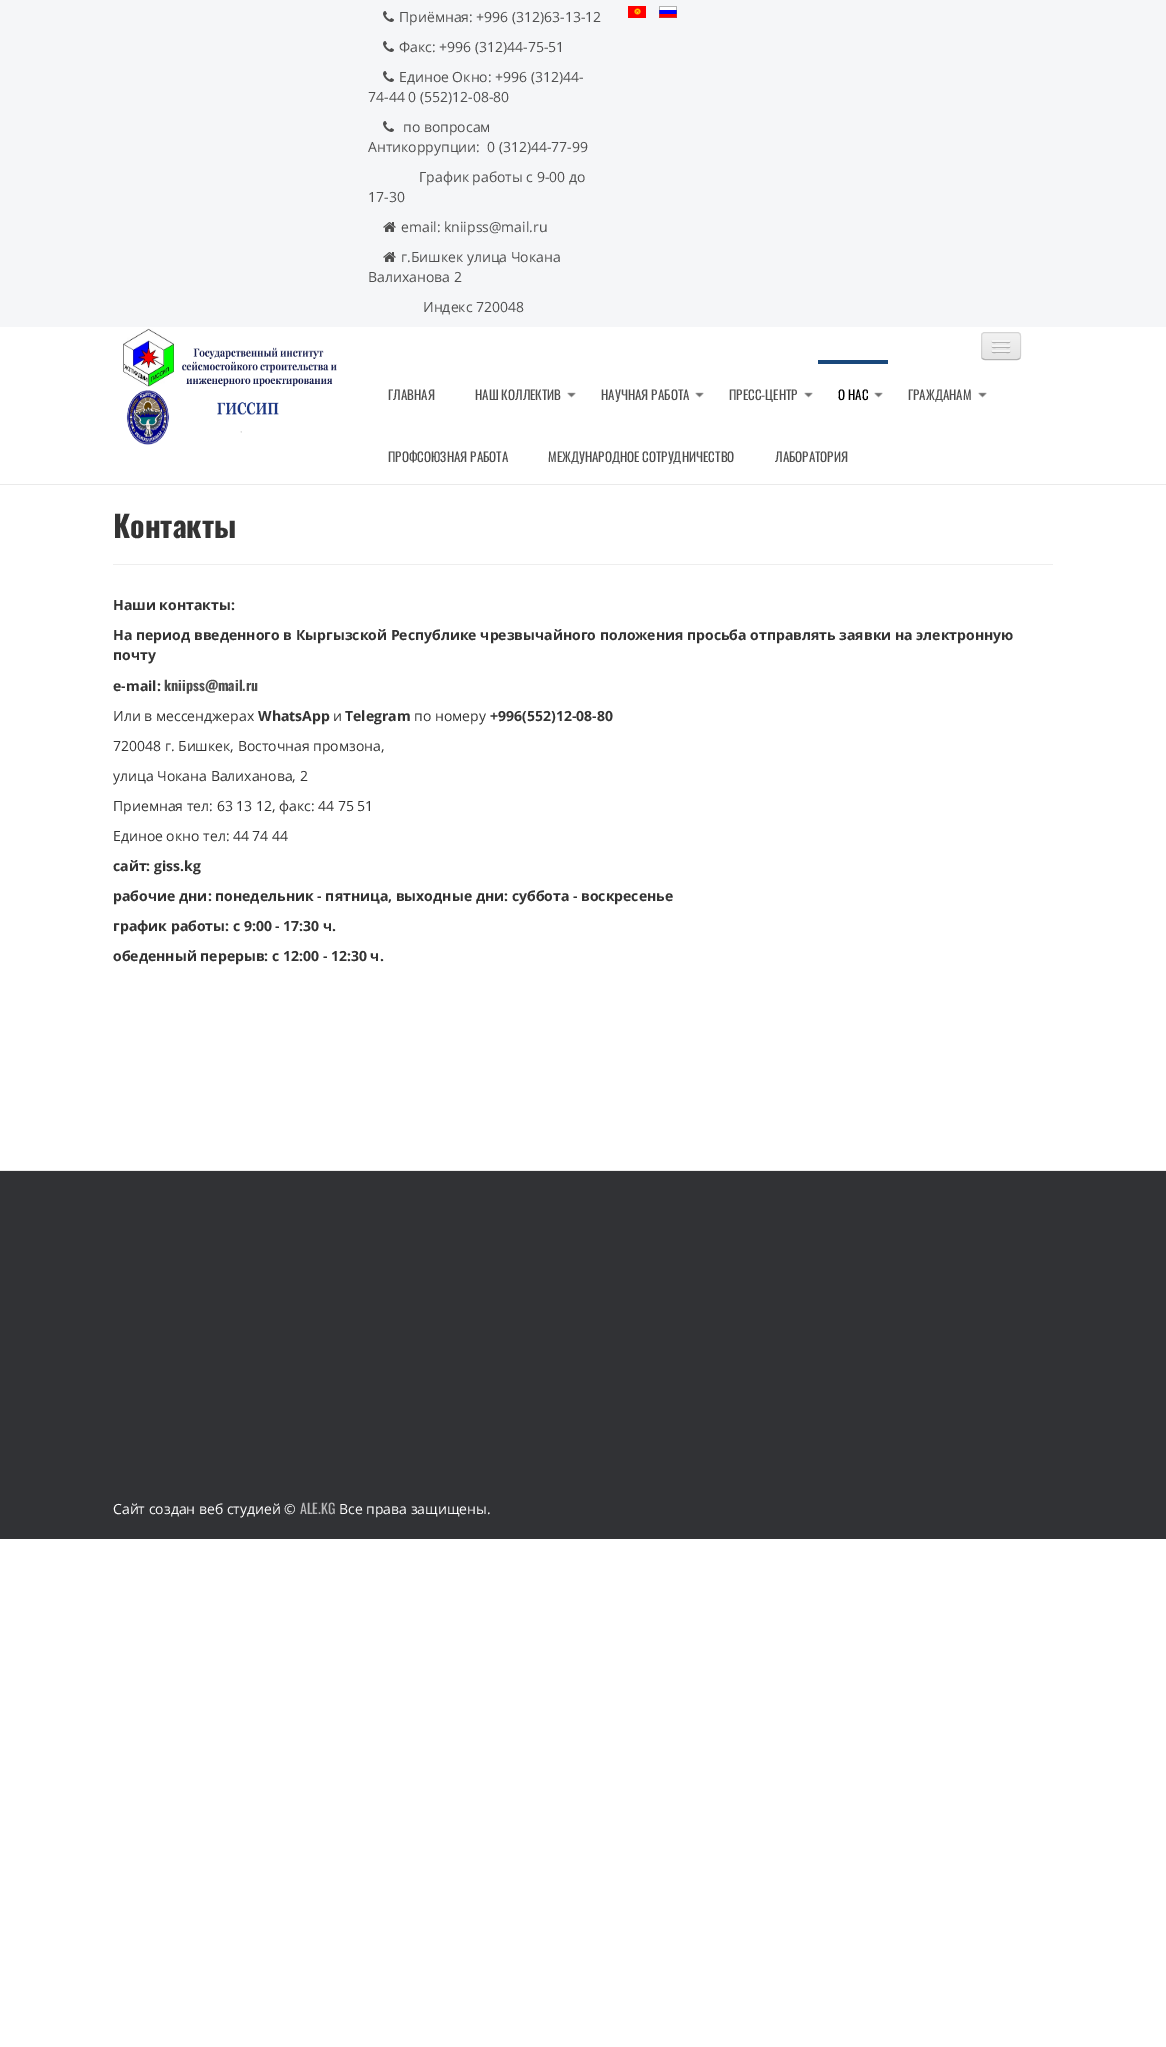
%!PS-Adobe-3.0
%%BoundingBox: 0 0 1166 2047
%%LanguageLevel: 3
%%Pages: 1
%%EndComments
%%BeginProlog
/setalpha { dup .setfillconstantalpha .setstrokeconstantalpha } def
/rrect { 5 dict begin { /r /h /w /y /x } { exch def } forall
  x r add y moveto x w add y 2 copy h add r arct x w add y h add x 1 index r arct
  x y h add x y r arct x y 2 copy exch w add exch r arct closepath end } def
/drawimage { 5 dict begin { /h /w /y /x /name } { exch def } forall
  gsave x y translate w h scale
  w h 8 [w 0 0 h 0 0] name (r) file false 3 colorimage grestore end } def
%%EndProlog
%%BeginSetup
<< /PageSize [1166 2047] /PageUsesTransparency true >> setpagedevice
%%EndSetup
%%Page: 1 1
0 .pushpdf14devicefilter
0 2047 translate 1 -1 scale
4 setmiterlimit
1 setgray
0 0 1166 2047 rectfill
0.918 setgray
0 484 1166 1 rectfill
0.961 0.965 0.973 setrgbcolor
0 0 1166 327 rectfill
(images/1.raw) 383 11 11 11 drawimage
(images/1.raw) 383 41 11 11 drawimage
(images/1.raw) 383 71 11 11 drawimage
(images/1.raw) 383 121 11 11 drawimage
(images/2.raw) 383 222 13 10 drawimage
(images/2.raw) 383 252 13 10 drawimage
(images/3.raw) 628 6 18 12 drawimage
(images/4.raw) 659 6 18 12 drawimage
(images/5.raw) 123 328 214 117 drawimage
0.929 setgray
981 332 40 28 4 rrect fill
gsave
981 332 40 28 4 rrect clip newpath
gsave newpath 981 333 moveto 1021 333 lineto 1021 359 lineto 981 359 lineto closepath clip newpath
<< /ShadingType 2 /ColorSpace /DeviceRGB /Coords [1001 333 1001 359] /Extend [true true] /Function << /FunctionType 2 /Domain [0 1] /C0 [0.949 0.949 0.949] /C1 [0.898 0.898 0.898] /N 1 >> >> shfill grestore
grestore
0.25 setalpha
0 setgray
newpath 1019.5 358.5 moveto 1019 359 1018 359.5 1017 359.5 curveto 985 359.5 lineto 984 359.5 983 359 982.5 358.5 curveto stroke
0.1 setalpha
newpath 982.5 358.5 moveto 982 358 981.5 357 981.5 356 curveto 981.5 336 lineto 981.5 335 982 334 982.5 333.5 curveto 983 333 984 332.5 985 332.5 curveto 1017 332.5 lineto 1018 332.5 1019 333 1019.5 333.5 curveto 1020 334 1020.5 335 1020.5 336 curveto 1020.5 356 lineto 1020.5 357 1020 358 1019.5 358.5 curveto stroke
1 setalpha
0.698 setgray
newpath 992 341.5 moveto 991 343.5 995.5 343 995.5 343 curveto 1006.5 343 lineto 1006.5 343 1011 343.5 1010 341.5 curveto 1009 342.5 1002.5 342 1001 342 curveto 999.5 342 993 342.5 992 341.5 curveto closepath fill
0.961 setgray
992 340 18 2 1 rrect fill
0.69 setgray
newpath 992 346.5 moveto 991 348.5 995.5 348 995.5 348 curveto 1006.5 348 lineto 1006.5 348 1011 348.5 1010 346.5 curveto 1009 347.5 1002.5 347 1001 347 curveto 999.5 347 993 347.5 992 346.5 curveto closepath fill
0.961 setgray
992 345 18 2 1 rrect fill
0.682 setgray
newpath 992 351.5 moveto 991 353.5 995.5 353 995.5 353 curveto 1006.5 353 lineto 1006.5 353 1011 353.5 1010 351.5 curveto 1009 352.5 1002.5 352 1001 352 curveto 999.5 352 993 352.5 992 351.5 curveto closepath fill
0.961 setgray
992 350 18 2 1 rrect fill
(images/6.raw) 567 392 9 6 drawimage
(images/6.raw) 695 392 9 6 drawimage
(images/6.raw) 804 392 9 6 drawimage
0.098 0.282 0.482 setrgbcolor
818 360 70 4 rectfill
(images/6.raw) 874 392 9 6 drawimage
(images/6.raw) 978 392 9 6 drawimage
0.933 setgray
113 564 940 1 rectfill
0.192 0.196 0.208 setrgbcolor
0 1171 1166 368 rectfill
0.918 setgray
0 1170 1166 1 rectfill
/OpenSans-Regular [14 0 0 -14 0 0] selectfont
0.31 setgray
399 22 moveto (Приёмная: +996 \(312\)63-13-12) show
399 52 moveto (Факс: +996 \(312\)44-75-51) show
399 82 moveto (Единое Окно: +996 \(312\)44-) show
368 102 moveto (74-44 0 \(552\)12-08-80) show
403 132 moveto (по вопросам) show
368 152 moveto (Антикоррупции:) show
487 152 moveto (0 \(312\)44-77-99) show
419 182 moveto (График работы с 9-00 до) show
368 202 moveto (17-30) show
401 232 moveto (email: kniipss@mail.ru) show
401 262 moveto (г.Бишкек улица Чокана) show
368 282 moveto (Валиханова 2) show
423 312 moveto (Индекс 720048) show
/Oswald-Regular [13 0 0 -13 0 0] selectfont
388 400 moveto (ГЛАВНАЯ) show
475 400 moveto (НАШ КОЛЛЕКТИВ) show
601 400 moveto (НАУЧНАЯ РАБОТА) show
729 400 moveto (ПРЕСС-ЦЕНТР) show
0 setgray
838 400 moveto (О НАС) show
0.31 setgray
908 400 moveto (ГРАЖДАНАМ) show
388 462 moveto (ПРОФСОЮЗНАЯ РАБОТА) show
548 462 moveto (МЕЖДУНАРОДНОЕ СОТРУДНИЧЕСТВО) show
775 462 moveto (ЛАБОРАТОРИЯ) show
/Oswald-Bold [30 0 0 -30 0 0] selectfont
0.2 setgray
113 538 moveto (Контакты) show
/OpenSans-Bold [14 0 0 -14 0 0] selectfont
113 610 moveto (Наши контакты:) show
113 640 moveto (На период введенного в Кыргызской Республике чрезвычайного положения просьба отправлять заявки на электронную) show
113 660 moveto (почту) show
113 691 moveto (e-mail:) show
/Oswald-Bold [14 0 0 -14 0 0] selectfont
0.31 setgray
164 691 moveto (kniipss@mail.ru) show
/OpenSans-Regular [14 0 0 -14 0 0] selectfont
0.2 setgray
113 721 moveto (Или в мессенджерах) show
/OpenSans-Bold [14 0 0 -14 0 0] selectfont
258 721 moveto (WhatsApp) show
/OpenSans-Regular [14 0 0 -14 0 0] selectfont
333 721 moveto (и) show
/OpenSans-Bold [14 0 0 -14 0 0] selectfont
345 721 moveto (Telegram) show
/OpenSans-Regular [14 0 0 -14 0 0] selectfont
414 721 moveto (по номеру) show
/OpenSans-Bold [14 0 0 -14 0 0] selectfont
490 721 moveto (+996\(552\)12-08-80) show
/OpenSans-Regular [14 0 0 -14 0 0] selectfont
113 751 moveto (720048 г. Бишкек, Восточная промзона,) show
113 781 moveto (улица Чокана Валиханова, 2) show
113 811 moveto (Приемная тел: 63 13 12, факс: 44 75 51) show
113 841 moveto (Единое окно тел: 44 74 44) show
/OpenSans-Bold [14 0 0 -14 0 0] selectfont
113 871 moveto (сайт: giss.kg) show
113 901 moveto (рабочие дни: понедельник - пятница, выходные дни: суббота - воскресенье) show
113 931 moveto (график работы: с 9:00 - 17:30 ч.) show
113 961 moveto (обеденный перерыв: с 12:00 - 12:30 ч.) show
/OpenSans-Regular [14 0 0 -14 0 0] selectfont
1 setgray
113 1514 moveto (Сайт создан веб студией ©) show
/Oswald-Regular [14 0 0 -14 0 0] selectfont
0.722 0.722 0.725 setrgbcolor
300 1514 moveto (ALE.KG) show
/OpenSans-Regular [14 0 0 -14 0 0] selectfont
1 setgray
339 1514 moveto (Все права защищены.) show
.poppdf14devicefilter showpage
%%EOF
